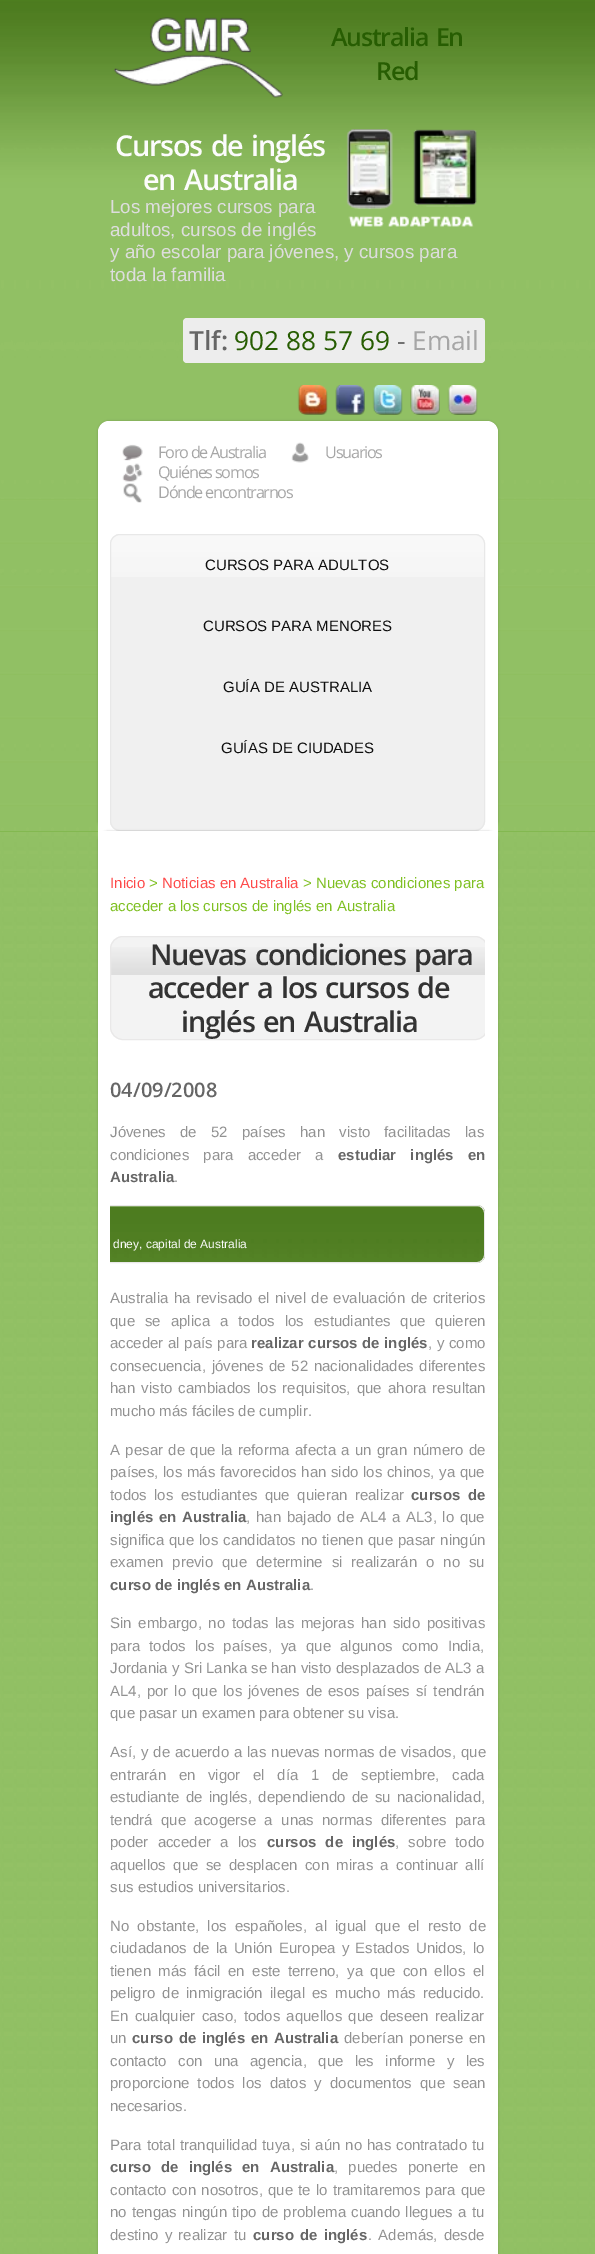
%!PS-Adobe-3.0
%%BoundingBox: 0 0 595 2254
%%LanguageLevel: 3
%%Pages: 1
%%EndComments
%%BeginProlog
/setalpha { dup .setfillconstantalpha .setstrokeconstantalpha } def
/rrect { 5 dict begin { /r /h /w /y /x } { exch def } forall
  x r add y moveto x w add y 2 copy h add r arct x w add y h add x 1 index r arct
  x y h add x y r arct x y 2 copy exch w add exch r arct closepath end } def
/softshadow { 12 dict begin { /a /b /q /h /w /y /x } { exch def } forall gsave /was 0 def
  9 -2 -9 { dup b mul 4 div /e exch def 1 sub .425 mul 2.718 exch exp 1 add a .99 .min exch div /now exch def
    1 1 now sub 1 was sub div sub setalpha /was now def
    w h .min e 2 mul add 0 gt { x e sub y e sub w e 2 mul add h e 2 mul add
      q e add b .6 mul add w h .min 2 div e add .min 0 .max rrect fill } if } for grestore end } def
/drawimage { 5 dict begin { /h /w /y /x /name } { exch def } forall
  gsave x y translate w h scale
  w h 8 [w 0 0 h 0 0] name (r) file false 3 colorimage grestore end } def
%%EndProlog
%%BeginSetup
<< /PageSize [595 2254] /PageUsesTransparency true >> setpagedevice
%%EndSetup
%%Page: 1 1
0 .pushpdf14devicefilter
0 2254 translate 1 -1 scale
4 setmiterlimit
0.353 0.635 0.078 setrgbcolor
0 0 595 2254 rectfill
(images/1.raw) 0 0 595 831 drawimage
(images/2.raw) 113 17 170 81 drawimage
(images/3.raw) 346 129 131 98 drawimage
0.929 setgray
183 318 302 45 4 rrect fill
(images/4.raw) 297 385 31 30 drawimage
(images/5.raw) 335 385 30 30 drawimage
(images/6.raw) 372 385 31 30 drawimage
(images/7.raw) 410 385 30 30 drawimage
(images/8.raw) 447 385 31 30 drawimage
(images/14.raw) 0 831 595 1423 drawimage
0 setgray
98 421 400 410 11 1 0.2 softshadow
1 setgray
newpath 109 421 moveto 487 421 lineto 493 421 498 426 498 432 curveto 498 831 lineto 98 831 lineto 98 432 lineto 98 426 103 421 109 421 curveto closepath fill
(images/9.raw) 122 444 21 17 drawimage
(images/10.raw) 291 442 18 21 drawimage
(images/11.raw) 122 463 21 19 drawimage
(images/12.raw) 123 483 19 20 drawimage
0.941 setgray
110 534 375 297 10 rrect fill
(images/13.raw) 110 535 375 42 drawimage
0.91 setgray
110.5 534.5 374 296 9.5 rrect stroke
0 setgray
98 831 400 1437 11 1 0.2 softshadow
1 setgray
98 831 400 1423 rectfill
gsave
110 936 375 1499 rectclip
0.953 setgray
110 936 378 104 13 rrect fill
grestore
(images/15.raw) 110 947 375 28 drawimage
gsave
110 936 375 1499 rectclip
0.914 0.91 0.91 setrgbcolor
110.5 936.5 377 103 12.5 rrect stroke
grestore
0.353 0.635 0.078 setrgbcolor
newpath 110 1205 moveto 477 1205 lineto 481.5 1205 485 1208.5 485 1213 curveto 485 1255 lineto 485 1259.5 481.5 1263 477 1263 curveto 110 1263 lineto closepath fill
(images/16.raw) 110 1205 375 58 drawimage
gsave
110 936 375 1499 rectclip
0.914 0.91 0.91 setrgbcolor
-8.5 1205.5 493 57 7.5 rrect stroke
grestore
/OpenSans-SemiBold [25 0 0 -25 0 0] selectfont
0.153 0.365 0.008 setrgbcolor
331 46 moveto 2.5 0 32 -1.25 0 (Australia En) awidthshow
376 80 moveto -1.25 0 (Red) ashow
/OpenSans-SemiBold [28.75 0 0 -28.75 0 0] selectfont
0.988 setgray
115 156 moveto 2.5 0 32 -1.25 0 (Cursos de inglés) awidthshow
143 190 moveto 2.5 0 32 -1.25 0 (en Australia) awidthshow
/LiberationSans-Regular [18.75 0 0 -18.75 0 0] selectfont
0.867 setgray
110 213 moveto (Los mejores cursos para) show
110 236 moveto (adultos, cursos de inglés) show
110 258 moveto (y año escolar para jóvenes, y cursos para) show
110 281 moveto (toda la familia) show
/OpenSans-SemiBold [26.25 0 0 -26.25 0 0] selectfont
0.4 setgray
189 350 moveto (Tlf:) show
/OpenSans-Regular [26.25 0 0 -26.25 0 0] selectfont
0.153 0.365 0.008 setrgbcolor
234 350 moveto (902 88 57 69) show
0.443 setgray
397 350 moveto (-) show
0.651 setgray
412 350 moveto (Email) show
/OpenSans-Regular [16.25 0 0 -16.25 0 0] selectfont
158 458 moveto -1.25 0 (Foro de Australia) ashow
325 458 moveto -1.25 0 (Usuarios) ashow
158 478 moveto -1.25 0 (Quiénes somos) ashow
158 498 moveto -1.25 0 (Dónde encontrarnos) ashow
/LiberationSans-Regular [15 0 0 -15 0 0] selectfont
0.055 setgray
205 570 moveto (CURSOS PARA ADULTOS) show
203 631 moveto (CURSOS PARA MENORES) show
223 692 moveto (GUÍA DE AUSTRALIA) show
221 753 moveto (GUÍAS DE CIUDADES) show
0.996 0.29 0.29 setrgbcolor
110 888 moveto (Inicio) show
0.498 0.753 0.137 setrgbcolor
149 888 moveto (>) show
0.996 0.29 0.29 setrgbcolor
162 888 moveto (Noticias en Australia) show
0.498 0.753 0.137 setrgbcolor
303 888 moveto (> Nuevas condiciones para) show
110 911 moveto (acceder a los cursos de inglés en Australia) show
/OpenSans-SemiBold [28.75 0 0 -28.75 0 0] selectfont
0.2 setgray
150 965 moveto 2.5 0 32 -1.25 0 (Nuevas condiciones para) awidthshow
148 998 moveto 2.5 0 32 -1.25 0 (acceder a los cursos de) awidthshow
181 1032 moveto 2.5 0 32 -1.25 0 (inglés en Australia) awidthshow
/OpenSans-SemiBold [20 0 0 -20 0 0] selectfont
0.4 setgray
110 1097 moveto (04/09/2008) show
/LiberationSans-Regular [15 0 0 -15 0 0] selectfont
0.573 setgray
110 1137 moveto 10 0 32 (Jóvenes de 52 países han visto facilitadas las) widthshow
110 1160 moveto 10 0 32 (condiciones para acceder a) widthshow
/LiberationSans-Bold [15 0 0 -15 0 0] selectfont
0.4 setgray
338 1160 moveto 10 0 32 (estudiar inglés en) widthshow
110 1182 moveto (Australia) show
/LiberationSans-Regular [15 0 0 -15 0 0] selectfont
0.573 setgray
174 1182 moveto (.) show
/LiberationSans-Regular [12 0 0 -12 0 0] selectfont
0.988 setgray
113 1248 moveto (dney, capital de Australia) show
/LiberationSans-Regular [15 0 0 -15 0 0] selectfont
0.573 setgray
110 1303 moveto 1.25 0 32 (Australia ha revisado el nivel de evaluación de criterios) widthshow
110 1326 moveto 5.75 0 32 (que se aplica a todos los estudiantes que quieren) widthshow
110 1348 moveto 0.5 0 32 (acceder al país para) widthshow
/LiberationSans-Bold [15 0 0 -15 0 0] selectfont
0.4 setgray
251 1348 moveto 0.5 0 32 (realizar cursos de inglés) widthshow
/LiberationSans-Regular [15 0 0 -15 0 0] selectfont
0.573 setgray
428 1348 moveto 0.5 0 32 (, y como) widthshow
110 1371 moveto 1.5 0 32 (consecuencia, jóvenes de 52 nacionalidades diferentes) widthshow
110 1393 moveto 2 0 32 (han visto cambiados los requisitos, que ahora resultan) widthshow
110 1416 moveto (mucho más fáciles de cumplir.) show
110 1455 moveto 1.25 0 32 (A pesar de que la reforma afecta a un gran número de) widthshow
110 1477 moveto 0.5 0 32 (países, los más favorecidos han sido los chinos, ya que) widthshow
110 1500 moveto 3.25 0 32 (todos los estudiantes que quieran realizar) widthshow
/LiberationSans-Bold [15 0 0 -15 0 0] selectfont
0.4 setgray
411 1500 moveto 3.25 0 32 (cursos de) widthshow
110 1522 moveto 1.5 0 32 (inglés en Australia) widthshow
/LiberationSans-Regular [15 0 0 -15 0 0] selectfont
0.573 setgray
246 1522 moveto 1.5 0 32 (, han bajado de AL4 a AL3, lo que) widthshow
110 1545 moveto 0.75 0 32 (significa que los candidatos no tienen que pasar ningún) widthshow
110 1567 moveto 4.75 0 32 (examen previo que determine si realizarán o no su) widthshow
/LiberationSans-Bold [15 0 0 -15 0 0] selectfont
0.4 setgray
110 1590 moveto (curso de inglés en Australia) show
/LiberationSans-Regular [15 0 0 -15 0 0] selectfont
0.573 setgray
310 1590 moveto (.) show
110 1628 moveto 2.5 0 32 (Sin embargo, no todas las mejoras han sido positivas) widthshow
110 1651 moveto 5 0 32 (para todos los países, ya que algunos como India,) widthshow
110 1673 moveto 0.1 0 32 (Jordania y Sri Lanka se han visto desplazados de AL3 a) widthshow
110 1696 moveto 1.75 0 32 (AL4, por lo que los jóvenes de esos países sí tendrán) widthshow
110 1718 moveto (que pasar un examen para obtener su visa.) show
110 1757 moveto 0.75 0 32 (Así, y de acuerdo a las nuevas normas de visados, que) widthshow
110 1780 moveto 8.5 0 32 (entrarán en vigor el día 1 de septiembre, cada) widthshow
110 1802 moveto 2.25 0 32 (estudiante de inglés, dependiendo de su nacionalidad,) widthshow
110 1825 moveto 4.25 0 32 (tendrá que acogerse a unas normas diferentes para) widthshow
110 1847 moveto 5 0 32 (poder acceder a los) widthshow
/LiberationSans-Bold [15 0 0 -15 0 0] selectfont
0.4 setgray
267 1847 moveto 5 0 32 (cursos de inglés) widthshow
/LiberationSans-Regular [15 0 0 -15 0 0] selectfont
0.573 setgray
395 1847 moveto 5 0 32 (, sobre todo) widthshow
110 1870 moveto 3.25 0 32 (aquellos que se desplacen con miras a continuar allí) widthshow
110 1892 moveto (sus estudios universitarios.) show
110 1931 moveto 4 0 32 (No obstante, los españoles, al igual que el resto de) widthshow
110 1953 moveto 2 0 32 (ciudadanos de la Unión Europea y Estados Unidos, lo) widthshow
110 1976 moveto 3.25 0 32 (tienen más fácil en este terreno, ya que con ellos el) widthshow
110 1998 moveto 3 0 32 (peligro de inmigración ilegal es mucho más reducido.) widthshow
110 2021 moveto 2 0 32 (En cualquier caso, todos aquellos que deseen realizar) widthshow
110 2043 moveto (un) show
/LiberationSans-Bold [15 0 0 -15 0 0] selectfont
0.4 setgray
132 2043 moveto 1.5 0 32 (curso de inglés en Australia) widthshow
/LiberationSans-Regular [15 0 0 -15 0 0] selectfont
0.573 setgray
344 2043 moveto 1.5 0 32 (deberían ponerse en) widthshow
110 2066 moveto 7.25 0 32 (contacto con una agencia, que les informe y les) widthshow
110 2088 moveto 4 0 32 (proporcione todos los datos y documentos que sean) widthshow
110 2111 moveto (necesarios.) show
110 2150 moveto 0.75 0 32 (Para total tranquilidad tuya, si aún no has contratado tu) widthshow
/LiberationSans-Bold [15 0 0 -15 0 0] selectfont
0.4 setgray
110 2172 moveto 6 0 32 (curso de inglés en Australia) widthshow
/LiberationSans-Regular [15 0 0 -15 0 0] selectfont
0.573 setgray
334 2172 moveto 6 0 32 (, puedes ponerte en) widthshow
110 2195 moveto 1 0 32 (contacto con nosotros, que te lo tramitaremos para que) widthshow
110 2217 moveto 1 0 32 (no tengas ningún tipo de problema cuando llegues a tu) widthshow
110 2240 moveto 2 0 32 (destino y realizar tu) widthshow
/LiberationSans-Bold [15 0 0 -15 0 0] selectfont
0.4 setgray
253 2240 moveto 2 0 32 (curso de inglés) widthshow
/LiberationSans-Regular [15 0 0 -15 0 0] selectfont
0.573 setgray
368 2240 moveto 2 0 32 (. Además, desde) widthshow
.poppdf14devicefilter showpage
%%EOF
